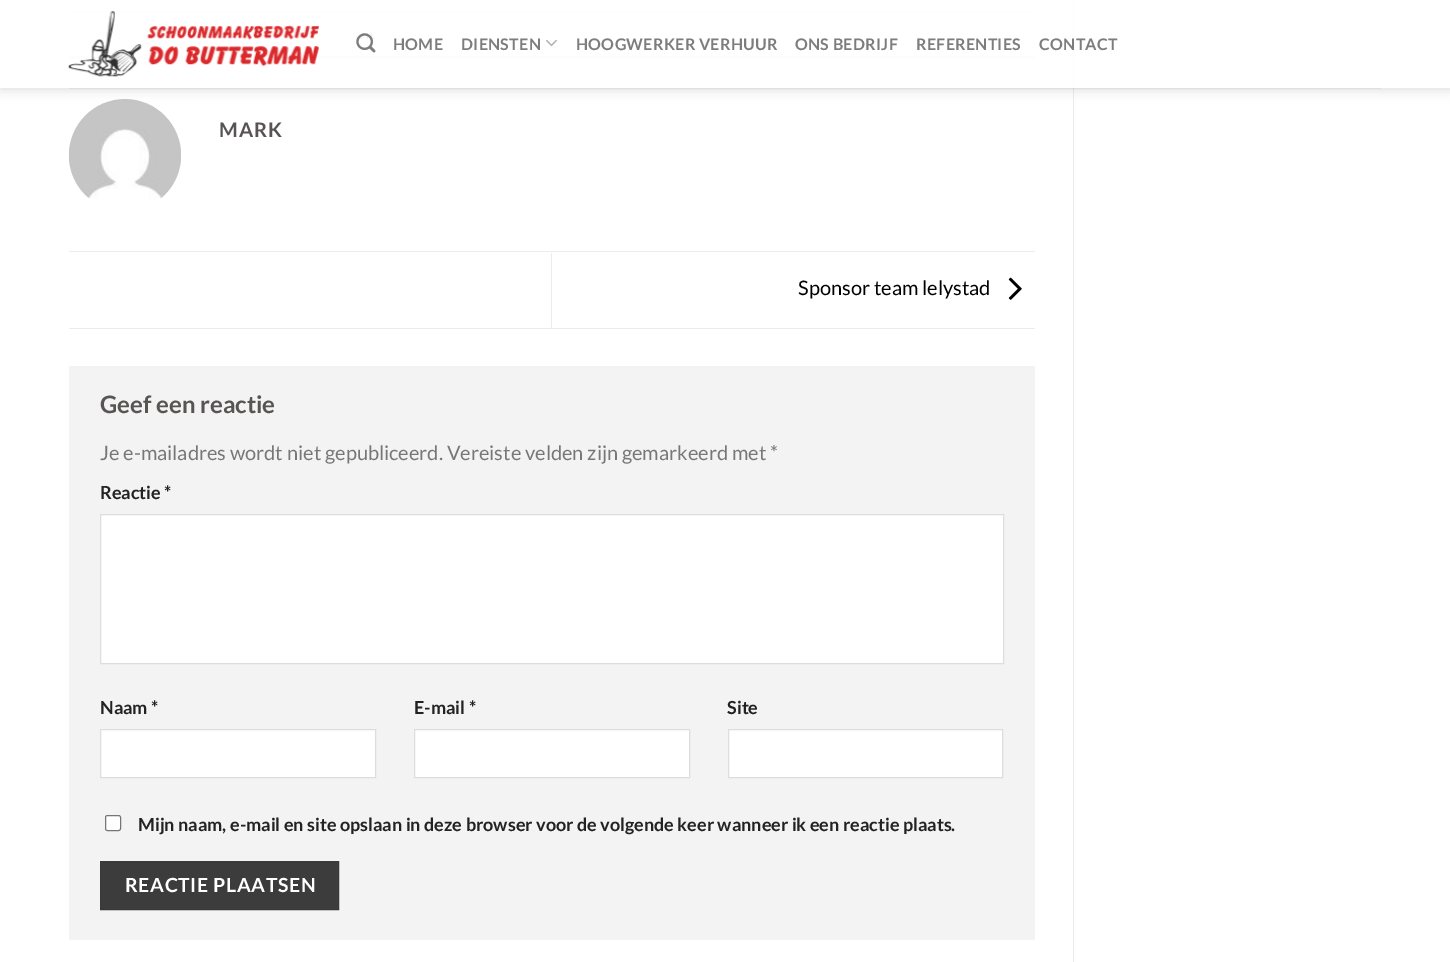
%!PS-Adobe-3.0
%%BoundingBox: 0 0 1450 962
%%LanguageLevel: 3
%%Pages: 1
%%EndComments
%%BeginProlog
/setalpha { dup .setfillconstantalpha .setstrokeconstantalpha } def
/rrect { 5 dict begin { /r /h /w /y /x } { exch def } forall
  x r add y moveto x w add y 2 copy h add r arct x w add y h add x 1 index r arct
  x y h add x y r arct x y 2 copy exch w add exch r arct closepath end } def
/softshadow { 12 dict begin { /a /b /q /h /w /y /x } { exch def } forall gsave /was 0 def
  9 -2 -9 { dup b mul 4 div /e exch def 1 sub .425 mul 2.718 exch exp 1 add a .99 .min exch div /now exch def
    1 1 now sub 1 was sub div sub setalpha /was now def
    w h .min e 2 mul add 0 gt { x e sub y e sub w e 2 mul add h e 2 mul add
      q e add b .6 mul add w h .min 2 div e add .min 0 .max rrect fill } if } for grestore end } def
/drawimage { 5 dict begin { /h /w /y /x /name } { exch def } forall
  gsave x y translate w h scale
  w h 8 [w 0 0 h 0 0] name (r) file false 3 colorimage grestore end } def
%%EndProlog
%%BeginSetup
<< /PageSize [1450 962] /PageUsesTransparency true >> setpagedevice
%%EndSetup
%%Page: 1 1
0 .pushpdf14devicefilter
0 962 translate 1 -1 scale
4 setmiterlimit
1 setgray
0 0 1450 962 rectfill
0.925 setgray
69 11 966 1 rectfill
69 56 966 3 rectfill
(images/4.raw) 68 99 113 100 drawimage
1073 0 1 962 rectfill
gsave
newpath 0 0 moveto 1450 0 lineto 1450 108 lineto 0 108 lineto closepath 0 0 moveto 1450 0 lineto 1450 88 lineto 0 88 lineto closepath eoclip newpath
0 setgray
1 1 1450 88 0 6 0.15 softshadow
grestore
0.9 setalpha
1 setgray
0 0 1450 88 rectfill
1 setalpha
(images/1.raw) 68 11 251 66 drawimage
(images/2.raw) 356 33 20 20 drawimage
(images/3.raw) 546 39 11 8 drawimage
0.1 setalpha
0.467 setgray
69 88 1312 1 rectfill
1 setalpha
0.925 setgray
69 251 966 1 rectfill
69 328 966 1 rectfill
551 253 1 75 rectfill
(images/5.raw) 1008 277 14 23 drawimage
0.953 setgray
69 366 966 574 rectfill
1 setgray
newpath 100.5 514.5 moveto 1003.5 514.5 lineto 1003.5 663.5 lineto 100.5 663.5 lineto closepath gsave fill grestore
0.867 setgray
stroke
1 setgray
newpath 100.5 729.5 moveto 375.5 729.5 lineto 375.5 777.5 lineto 100.5 777.5 lineto closepath gsave fill grestore
0.867 setgray
stroke
1 setgray
newpath 414.5 729.5 moveto 689.5 729.5 lineto 689.5 777.5 lineto 414.5 777.5 lineto closepath gsave fill grestore
0.867 setgray
stroke
1 setgray
newpath 728.5 729.5 moveto 1002.5 729.5 lineto 1002.5 777.5 lineto 728.5 777.5 lineto closepath gsave fill grestore
0.867 setgray
stroke
1 setgray
105.5 815.5 15 15 2 rrect gsave fill grestore
0.463 setgray
stroke
0.239 0.235 0.235 setrgbcolor
newpath 100.5 861.5 moveto 338.5 861.5 lineto 338.5 909.5 lineto 100.5 909.5 lineto closepath gsave fill grestore
0.227 0.224 0.224 setrgbcolor
stroke
/Lato-Bold [16 0 0 -16 0 0] selectfont
0.49 setgray
393 50 moveto 0.3 0 (HOME) ashow
461 50 moveto 0.3 0 (DIENSTEN) ashow
576 50 moveto 0.3 0 (HOOGWERKER VERHUUR) ashow
795 50 moveto 0.3 0 (ONS BEDRIJF) ashow
916 50 moveto 0.3 0 (REFERENTIES) ashow
1039 50 moveto 0.3 0 (CONTACT) ashow
/Lato-Bold [20 0 0 -20 0 0] selectfont
0.345 0.329 0.329 setrgbcolor
219 137 moveto 1 0 (MARK) ashow
/Lato-Regular [20 0 0 -20 0 0] selectfont
0 setgray
798 295 moveto (Sponsor team lelystad) show
/Lato-Bold [24 0 0 -24 0 0] selectfont
0.345 0.329 0.329 setrgbcolor
100 413 moveto (Geef een reactie) show
/Lato-Regular [20 0 0 -20 0 0] selectfont
0.467 setgray
100 460 moveto (Je e-mailadres wordt niet gepubliceerd. Vereiste velden zijn gemarkeerd met *) show
/Lato-Bold [18 0 0 -18 0 0] selectfont
0.133 setgray
100 499 moveto (Reactie *) show
100 714 moveto (Naam *) show
414 714 moveto (E-mail *) show
727 714 moveto (Site) show
138 831 moveto (Mijn naam, e-mail en site opslaan in deze browser voor de volgende keer wanneer ik een reactie plaats.) show
/Lato-Bold [19.5 0 0 -19.5 0 0] selectfont
1 setgray
125 892 moveto 0.6 0 (REACTIE PLAATSEN) ashow
.poppdf14devicefilter showpage
%%EOF
